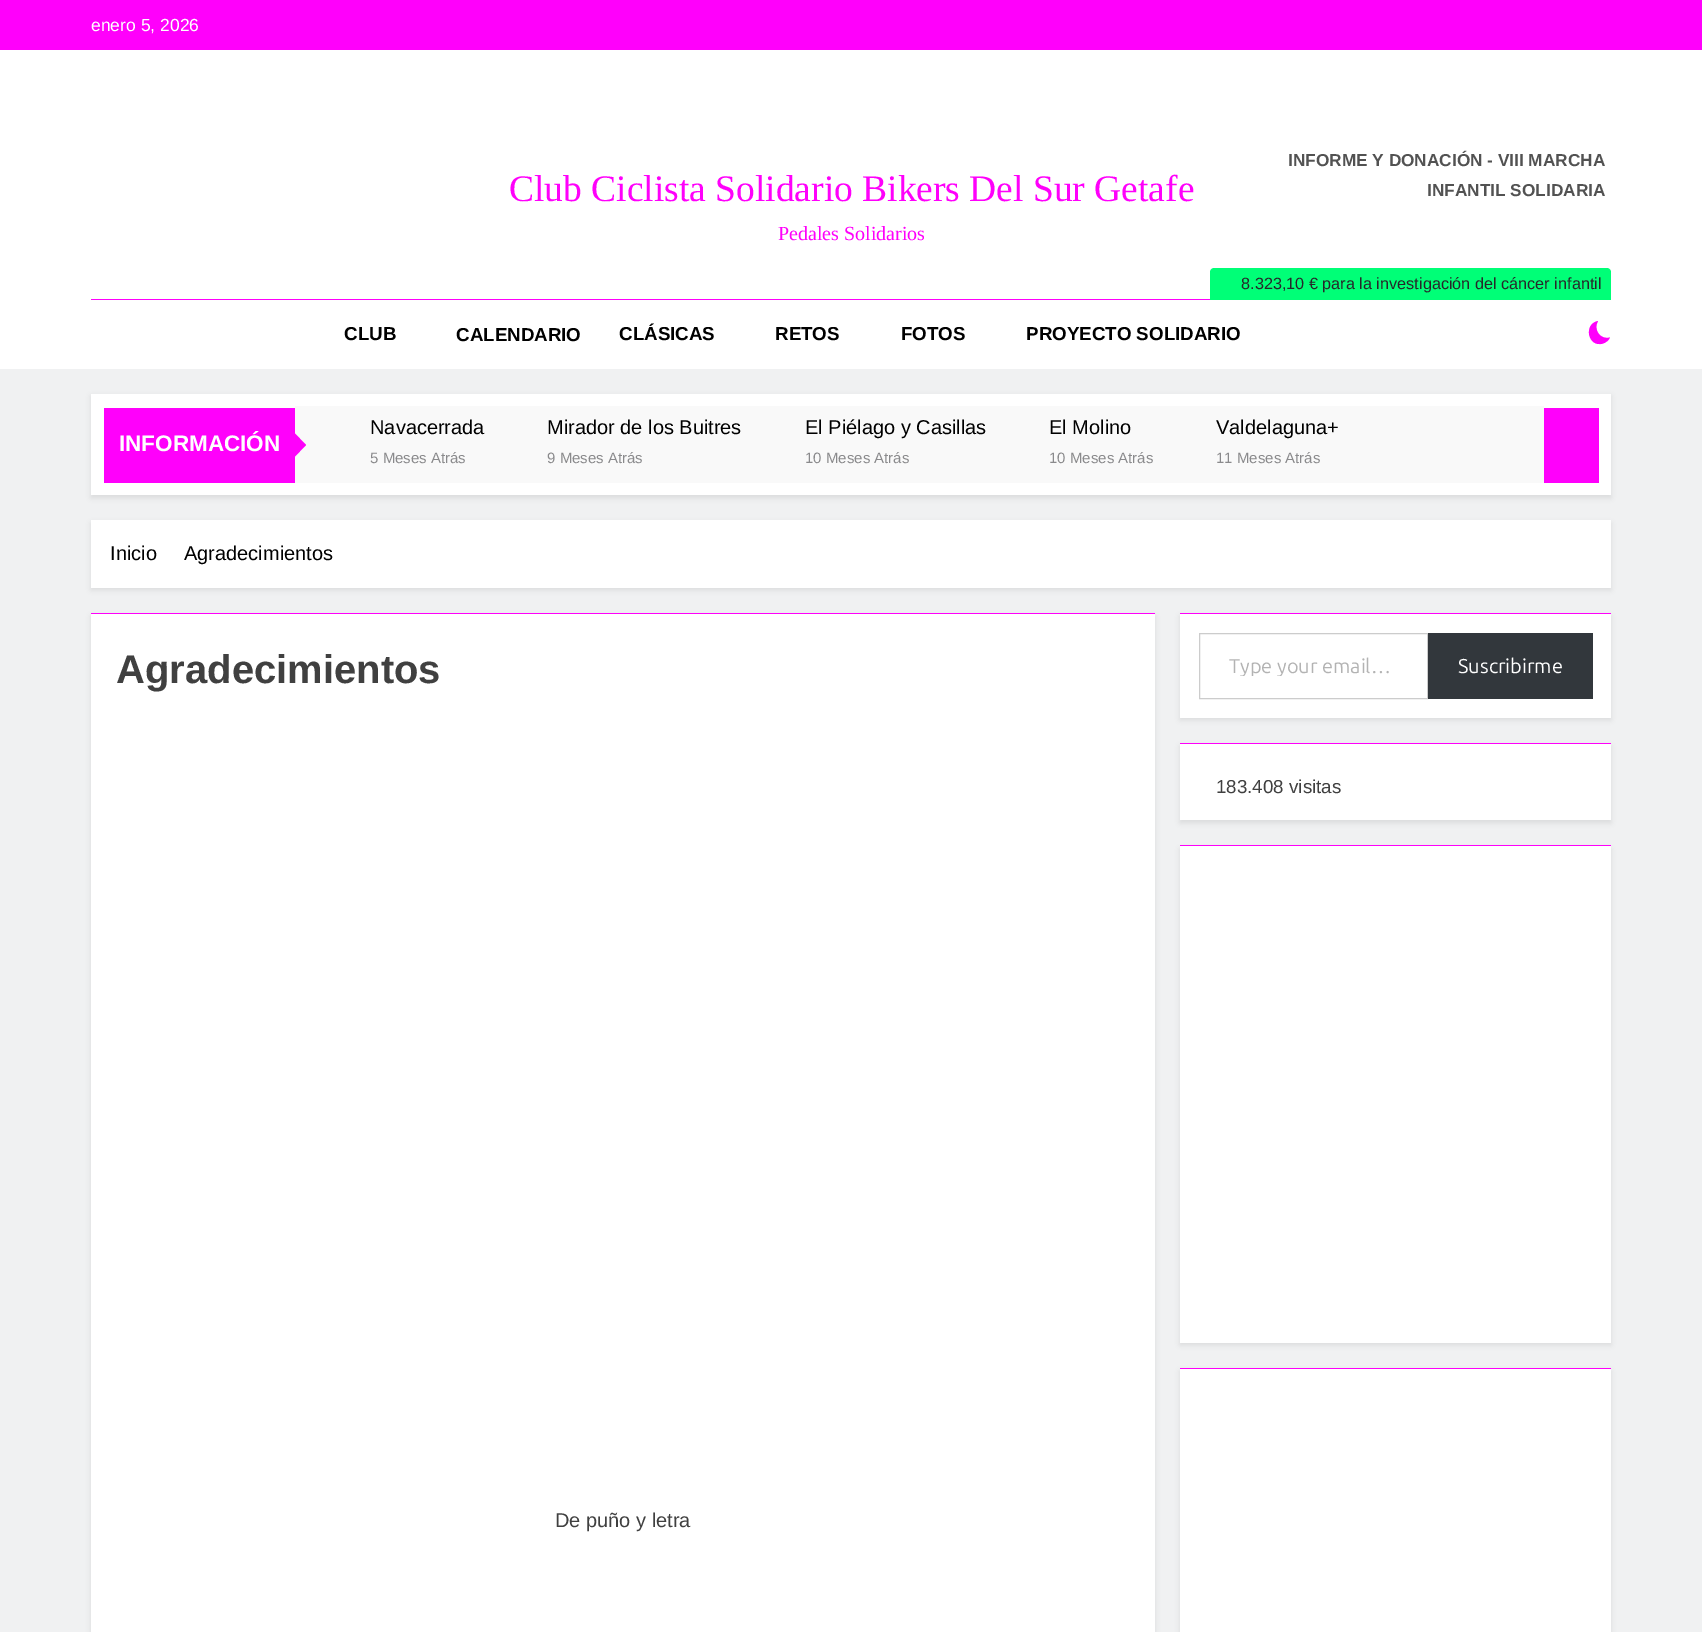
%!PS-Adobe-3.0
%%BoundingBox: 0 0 1702 1632
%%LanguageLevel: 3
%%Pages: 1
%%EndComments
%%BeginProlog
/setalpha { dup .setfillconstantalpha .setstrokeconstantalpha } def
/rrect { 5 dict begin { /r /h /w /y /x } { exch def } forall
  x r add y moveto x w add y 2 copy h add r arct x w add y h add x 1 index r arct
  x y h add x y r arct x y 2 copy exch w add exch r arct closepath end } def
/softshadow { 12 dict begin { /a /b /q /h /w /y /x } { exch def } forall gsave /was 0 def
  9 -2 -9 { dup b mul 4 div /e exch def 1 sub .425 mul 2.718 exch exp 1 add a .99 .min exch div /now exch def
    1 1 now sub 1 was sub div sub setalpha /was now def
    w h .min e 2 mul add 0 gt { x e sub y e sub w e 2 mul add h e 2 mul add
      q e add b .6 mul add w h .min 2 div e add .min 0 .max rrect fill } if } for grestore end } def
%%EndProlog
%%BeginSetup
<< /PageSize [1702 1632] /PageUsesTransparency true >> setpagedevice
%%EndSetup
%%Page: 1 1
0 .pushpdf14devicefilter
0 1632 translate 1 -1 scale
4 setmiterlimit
0.941 0.945 0.949 setrgbcolor
0 0 1702 1632 rectfill
1 0 0.984 setrgbcolor
0 0 1702 50 rectfill
1 setgray
0 50 1702 319 rectfill
1 0 0.984 setrgbcolor
91 299 1119 1 rectfill
0 1 0.467 setrgbcolor
newpath 1214 268 moveto 1607 268 lineto 1609 268 1611 270 1611 272 curveto 1611 300 lineto 1210 300 lineto 1210 272 lineto 1210 270 1212 268 1214 268 curveto closepath fill
1 0 0.984 setrgbcolor
newpath 1610 337.5 moveto 1600.5 340 1593 330 1598 321 curveto 1583 324 1588 348 1603 343.5 curveto 1606 342.5 1608.5 340.5 1610 337.5 curveto closepath fill
0 setgray
91 396 1520 102 0 2.5 0.08 softshadow
1 setgray
91 394 1520 101 rectfill
1 0 0.984 setrgbcolor
104 408 191 75 rectfill
0.976 setgray
295 406 1249 77 rectfill
1 0 0.984 setrgbcolor
newpath 294 457.5 moveto 294 432.5 lineto 306 445 lineto closepath fill
1544 408 55 75 rectfill
0 setgray
91 523 1520 67 0 2.5 0.08 softshadow
1 setgray
91 520 1520 68 rectfill
0 setgray
91 616 1064 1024 0 2.5 0.08 softshadow
1 setgray
91 614 1064 1018 rectfill
1 0 0.984 setrgbcolor
91 613 1064 1 rectfill
0 setgray
1180 616 431 104 0 2.5 0.08 softshadow
1 setgray
1180 614 431 104 rectfill
1 0 0.984 setrgbcolor
1180 613 431 1 rectfill
0.8 setgray
1199.5 633.5 228 65 rectstroke
0.196 0.216 0.235 setrgbcolor
1428 633 165 66 rectfill
0 setgray
1180 746 431 77 0 2.5 0.08 softshadow
1 setgray
1180 744 431 76 rectfill
1 0 0.984 setrgbcolor
1180 743 431 1 rectfill
0 setgray
1180 849 431 496 0 2.5 0.08 softshadow
1 setgray
1180 846 431 497 rectfill
1 0 0.984 setrgbcolor
1180 845 431 1 rectfill
0 setgray
1180 1371 431 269 0 2.5 0.08 softshadow
1 setgray
1180 1369 431 263 rectfill
1 0 0.984 setrgbcolor
1180 1368 431 1 rectfill
/LiberationSans-Regular [17.5 0 0 -17.5 0 0] selectfont
1 setgray
91 31 moveto (enero 5, 2026) show
/LiberationSerif-Regular [37.5 0 0 -37.5 0 0] selectfont
1 0 0.984 setrgbcolor
509 201 moveto (Club Ciclista Solidario Bikers Del Sur Getafe) show
/LiberationSerif-Regular [20 0 0 -20 0 0] selectfont
778 240 moveto (Pedales Solidarios) show
/LiberationSans-Bold [17.25 0 0 -17.25 0 0] selectfont
0.322 setgray
1288 166 moveto (INFORME Y DONACIÓN - VIII MARCHA) show
1427 196 moveto (INFANTIL SOLIDARIA) show
/LiberationSans-Regular [16.25 0 0 -16.25 0 0] selectfont
0.153 0.153 0.165 setrgbcolor
1241 289 moveto (8.323,10 € para la investigación del cáncer infantil) show
/LiberationSans-Bold [18.75 0 0 -18.75 0 0] selectfont
0 setgray
344 340 moveto (CLUB) show
456 341 moveto (CALENDARIO) show
619 340 moveto (CLÁSICAS) show
775 340 moveto (RETOS) show
901 340 moveto (FOTOS) show
1026 340 moveto (PROYECTO SOLIDARIO) show
/LiberationSans-Bold [22.5 0 0 -22.5 0 0] selectfont
1 setgray
119 451 moveto (INFORMACIÓN) show
/LiberationSans-Regular [20 0 0 -20 0 0] selectfont
0 setgray
370 434 moveto (Navacerrada) show
/LiberationSans-Regular [15 0 0 -15 0 0] selectfont
0.541 0.541 0.549 setrgbcolor
370 463 moveto (5 Meses Atrás) show
/LiberationSans-Regular [20 0 0 -20 0 0] selectfont
0 setgray
547 434 moveto (Mirador de los Buitres) show
/LiberationSans-Regular [15 0 0 -15 0 0] selectfont
0.541 0.541 0.549 setrgbcolor
547 463 moveto (9 Meses Atrás) show
/LiberationSans-Regular [20 0 0 -20 0 0] selectfont
0 setgray
805 434 moveto (El Piélago y Casillas) show
/LiberationSans-Regular [15 0 0 -15 0 0] selectfont
0.541 0.541 0.549 setrgbcolor
805 463 moveto (10 Meses Atrás) show
/LiberationSans-Regular [20 0 0 -20 0 0] selectfont
0 setgray
1049 434 moveto (El Molino) show
/LiberationSans-Regular [15 0 0 -15 0 0] selectfont
0.541 0.541 0.549 setrgbcolor
1049 463 moveto (10 Meses Atrás) show
/LiberationSans-Regular [20 0 0 -20 0 0] selectfont
0 setgray
1216 434 moveto (Valdelaguna+) show
/LiberationSans-Regular [15 0 0 -15 0 0] selectfont
0.541 0.541 0.549 setrgbcolor
1216 463 moveto (11 Meses Atrás) show
/LiberationSans-Regular [20 0 0 -20 0 0] selectfont
0 setgray
110 560 moveto (Inicio) show
184 560 moveto (Agradecimientos) show
/LiberationSans-Bold [40 0 0 -40 0 0] selectfont
0.251 setgray
116 683 moveto (Agradecimientos) show
/LiberationSans-Regular [20 0 0 -20 0 0] selectfont
555 1527 moveto (De puño y letra) show
gsave
1229 654 169 22 rectclip
/Ubuntu-Regular [20 0 0 -20 0 0] selectfont
0.702 setgray
1229 673 moveto (Type your email…) show
grestore
/Ubuntu-Regular [20 0 0 -20 0 0] selectfont
1 setgray
1458 673 moveto (Suscribirme) show
/LiberationSans-Regular [18.75 0 0 -18.75 0 0] selectfont
0.251 setgray
1216 793 moveto (183.408 visitas) show
.poppdf14devicefilter showpage
%%EOF
